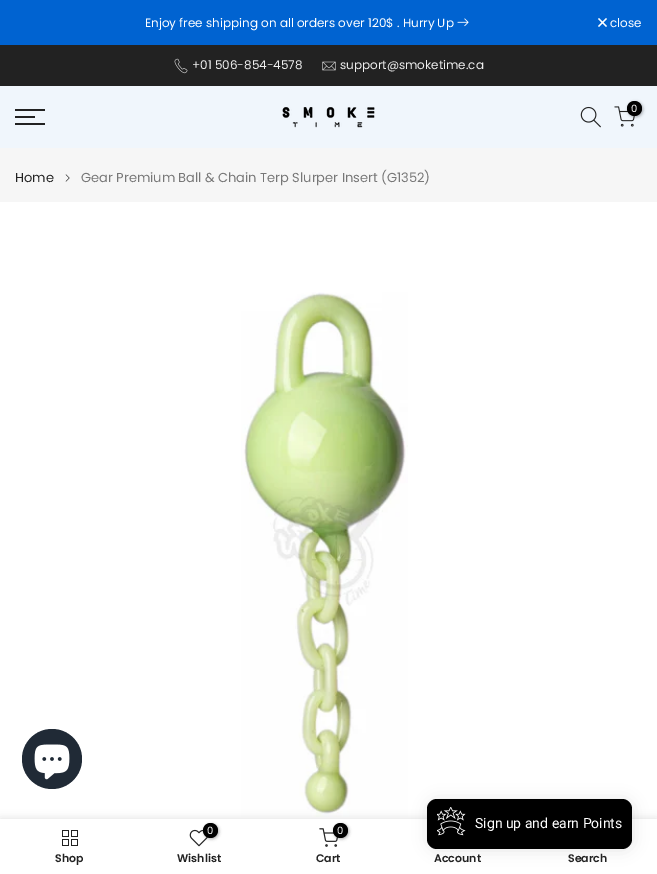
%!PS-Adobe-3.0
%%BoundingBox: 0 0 657 874
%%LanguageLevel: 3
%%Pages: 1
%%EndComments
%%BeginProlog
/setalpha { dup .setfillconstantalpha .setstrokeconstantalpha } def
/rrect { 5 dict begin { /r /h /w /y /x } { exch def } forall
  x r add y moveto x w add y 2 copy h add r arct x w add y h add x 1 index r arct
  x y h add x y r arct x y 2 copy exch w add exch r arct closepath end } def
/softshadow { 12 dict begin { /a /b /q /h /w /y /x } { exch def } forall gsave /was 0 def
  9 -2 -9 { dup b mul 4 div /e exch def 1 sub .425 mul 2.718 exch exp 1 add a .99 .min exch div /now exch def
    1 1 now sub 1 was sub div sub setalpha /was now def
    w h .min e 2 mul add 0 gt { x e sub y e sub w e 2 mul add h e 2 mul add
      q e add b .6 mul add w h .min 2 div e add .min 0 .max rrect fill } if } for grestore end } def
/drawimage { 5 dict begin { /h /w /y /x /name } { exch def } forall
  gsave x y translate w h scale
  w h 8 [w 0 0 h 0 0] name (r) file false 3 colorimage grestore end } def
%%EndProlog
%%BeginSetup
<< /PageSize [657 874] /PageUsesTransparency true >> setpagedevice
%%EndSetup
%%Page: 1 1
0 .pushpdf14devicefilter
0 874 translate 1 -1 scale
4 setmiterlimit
1 setgray
0 0 657 874 rectfill
0 0.388 0.82 setrgbcolor
0 0 657 45 rectfill
(images/1.raw) 457 18 12 9 drawimage
1 setgray
1.1 setlinewidth
newpath 606.5 18.5 moveto 598.5 26.5 lineto 606.5 26.5 moveto 598.5 18.5 lineto stroke
0.133 setgray
0 45 657 41 rectfill
(images/2.raw) 174 58 14 16 drawimage
(images/3.raw) 322 61 14 10 drawimage
0.941 0.965 0.988 setrgbcolor
0 86 657 62 rectfill
0.133 setgray
15 109 30 2 rectfill
15 116 20 2 rectfill
15 123 30 2 rectfill
(images/4.raw) 282 107 93 21 drawimage
(images/5.raw) 580 106 21 22 drawimage
(images/6.raw) 614 106 21 21 drawimage
0 setgray
628 102 15 15 7.5 1.5 0.3 softshadow
newpath 634.5 108.5 7.5 0 360 arc closepath fill
0.965 setgray
0 148 657 54 rectfill
(images/7.raw) 65 174 5 8 drawimage
(images/8.raw) 241 292 167 525 drawimage
0.125 0.165 0.212 setrgbcolor
newpath 52 759 30 0 360 arc closepath fill
(images/9.raw) 34 744 36 36 drawimage
0 setgray
0 819 657 55 0 4.5 0.12 softshadow
1 setgray
0 819 657 55 rectfill
0 setgray
428 800 205 50 10 7.5 0.1 softshadow
427 799 205 50 10 rrect fill
(images/10.raw) 437 807 29 29 drawimage
(images/11.raw) 62 830 16 16 drawimage
(images/12.raw) 189 829 19 18 drawimage
204 824 15 15 7.5 1.5 0.3 softshadow
newpath 210.5 830.5 7.5 0 360 arc closepath fill
(images/13.raw) 319 828 19 19 drawimage
334 824 15 15 7.5 1.5 0.3 softshadow
newpath 340.5 830.5 7.5 0 360 arc closepath fill
/Poppins-Regular [12 0 0 -12 0 0] selectfont
1 setgray
145 27 moveto (Enjoy free shipping on all orders over 120$ . Hurry Up) show
610 27 moveto (close) show
0.937 setgray
192 69 moveto (+01 506-854-4578) show
340 69 moveto (support@smoketime.ca) show
/Poppins-Regular [10 0 0 -10 0 0] selectfont
1 setgray
631 112 moveto (0) show
/Poppins-Regular [13 0 0 -13 0 0] selectfont
0.133 setgray
15 182 moveto (Home) show
0.467 setgray
81 182 moveto (Gear Premium Ball & Chain Terp Slurper Insert \(G1352\)) show
/Roboto-Regular [14 0 0 -14 0 0] selectfont
1 setgray
475 828 moveto (Sign up and earn Points) show
/Poppins-SemiBold [11 0 0 -11 0 0] selectfont
0.133 setgray
55 862 moveto (Shop) show
/Poppins-Regular [10 0 0 -10 0 0] selectfont
1 setgray
207 834 moveto (0) show
/Poppins-SemiBold [11 0 0 -11 0 0] selectfont
0.133 setgray
177 862 moveto (Wishlist) show
/Poppins-Regular [10 0 0 -10 0 0] selectfont
1 setgray
337 834 moveto (0) show
/Poppins-SemiBold [11 0 0 -11 0 0] selectfont
0.133 setgray
316 862 moveto (Cart) show
434 862 moveto (Account) show
568 862 moveto (Search) show
.poppdf14devicefilter showpage
%%EOF
